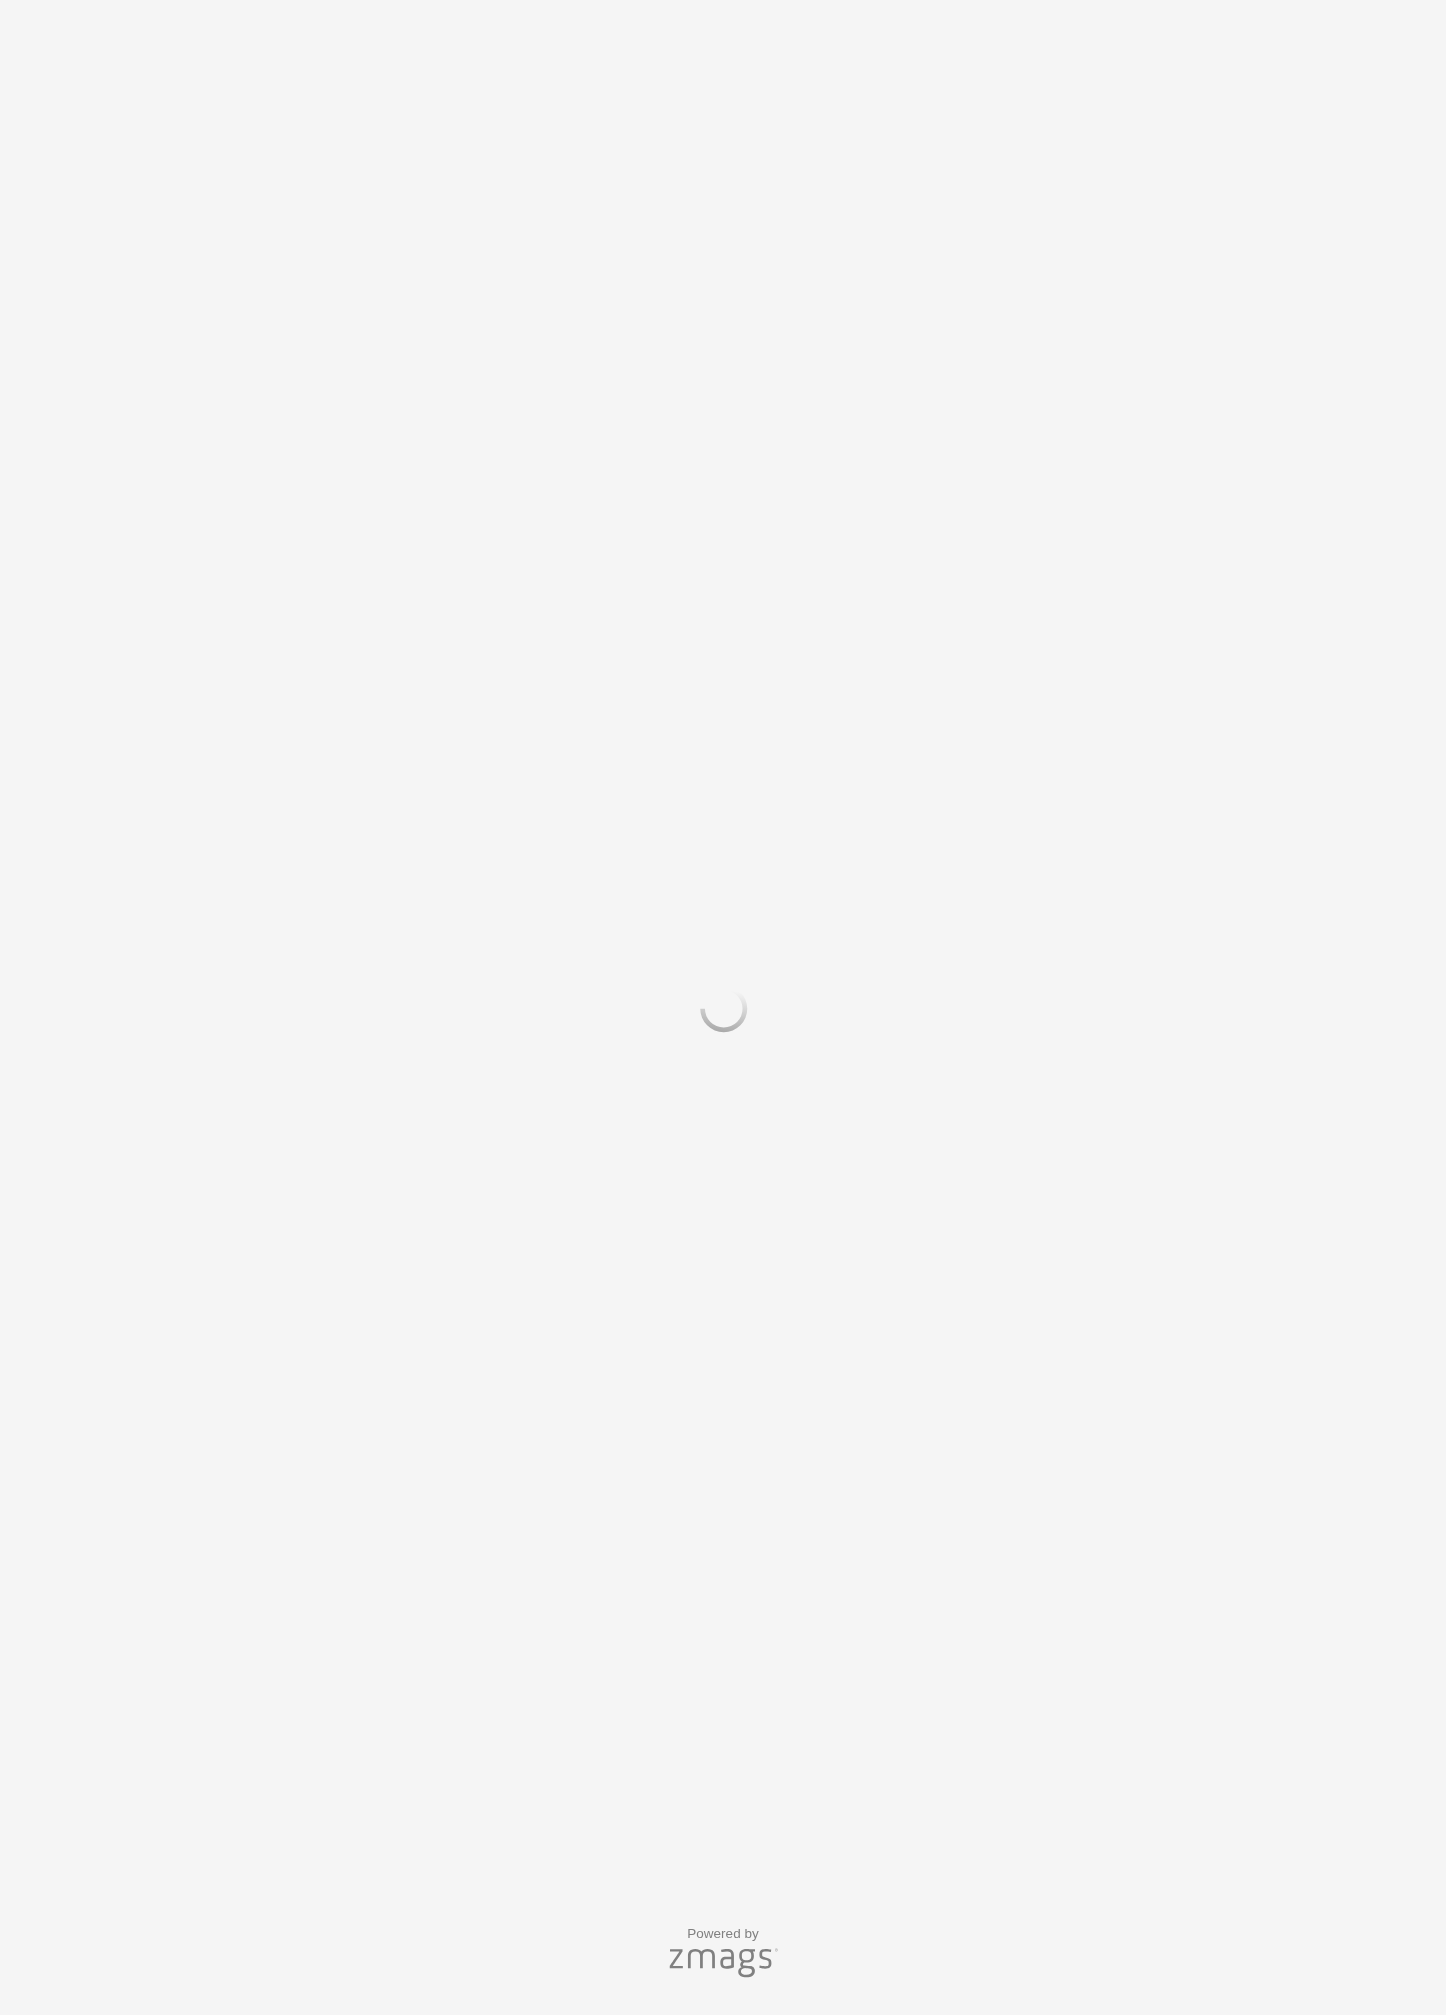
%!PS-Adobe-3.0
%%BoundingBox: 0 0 1446 2015
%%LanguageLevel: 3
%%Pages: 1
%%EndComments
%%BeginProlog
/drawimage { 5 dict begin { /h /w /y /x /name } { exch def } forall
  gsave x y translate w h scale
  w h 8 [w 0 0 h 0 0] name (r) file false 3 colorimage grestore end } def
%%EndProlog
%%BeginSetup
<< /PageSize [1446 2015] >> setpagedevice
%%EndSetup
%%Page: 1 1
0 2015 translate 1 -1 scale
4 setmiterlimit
1 setgray
0 0 1446 2015 rectfill
(images/1.raw) 0 0 1446 2015 drawimage
showpage
%%EOF
